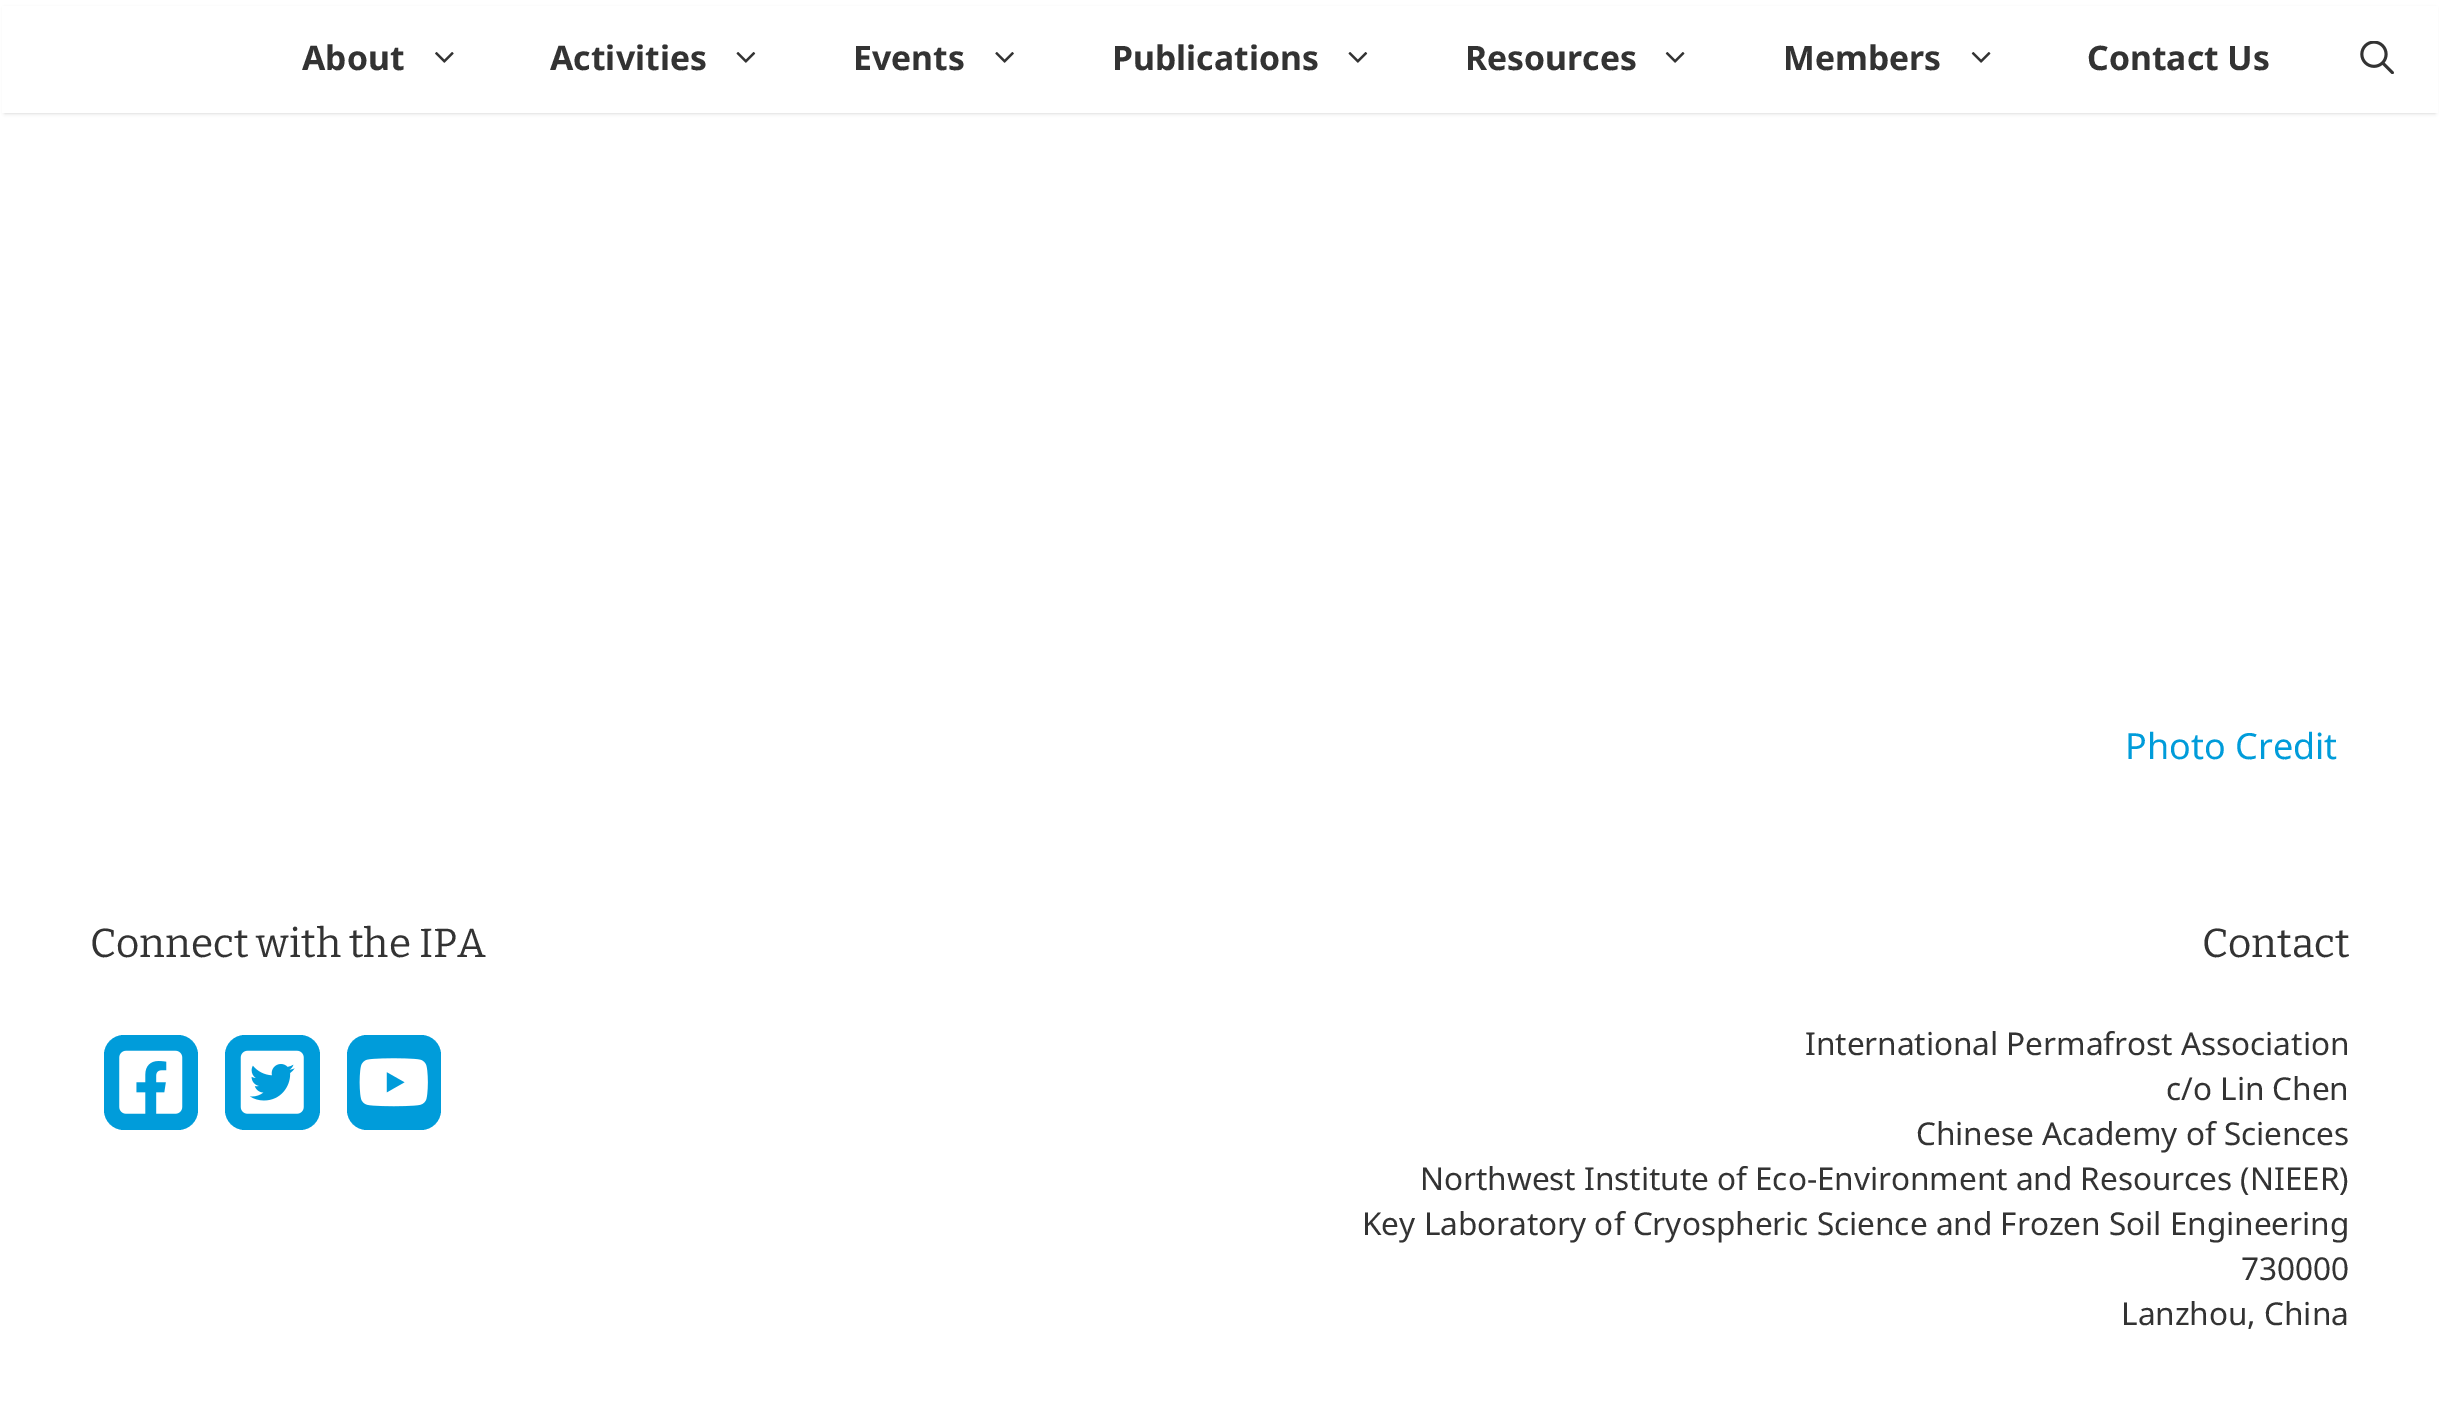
%!PS-Adobe-3.0
%%BoundingBox: 0 0 2439 1426
%%LanguageLevel: 3
%%Pages: 1
%%EndComments
%%BeginProlog
/setalpha { dup .setfillconstantalpha .setstrokeconstantalpha } def
/rrect { 5 dict begin { /r /h /w /y /x } { exch def } forall
  x r add y moveto x w add y 2 copy h add r arct x w add y h add x 1 index r arct
  x y h add x y r arct x y 2 copy exch w add exch r arct closepath end } def
/softshadow { 12 dict begin { /a /b /q /h /w /y /x } { exch def } forall gsave /was 0 def
  9 -2 -9 { dup b mul 4 div /e exch def 1 sub .425 mul 2.718 exch exp 1 add a .99 .min exch div /now exch def
    1 1 now sub 1 was sub div sub setalpha /was now def
    w h .min e 2 mul add 0 gt { x e sub y e sub w e 2 mul add h e 2 mul add
      q e add b .6 mul add w h .min 2 div e add .min 0 .max rrect fill } if } for grestore end } def
/drawimage { 5 dict begin { /h /w /y /x /name } { exch def } forall
  gsave x y translate w h scale
  w h 8 [w 0 0 h 0 0] name (r) file false 3 colorimage grestore end } def
%%EndProlog
%%BeginSetup
<< /PageSize [2439 1426] /PageUsesTransparency true >> setpagedevice
%%EndSetup
%%Page: 1 1
0 .pushpdf14devicefilter
0 1426 translate 1 -1 scale
4 setmiterlimit
1 setgray
0 0 2439 1426 rectfill
0 setgray
5 9 2430 104 0 2 0.2 softshadow
1 setgray
2 6 2436 107 rectfill
(images/1.raw) 435 52 19 11 drawimage
(images/2.raw) 736 52 20 11 drawimage
(images/3.raw) 995 52 19 11 drawimage
(images/2.raw) 1348 52 20 11 drawimage
(images/4.raw) 1665 52 20 11 drawimage
(images/4.raw) 1971 52 20 11 drawimage
(images/5.raw) 2360 41 34 33 drawimage
0 0.612 0.855 setrgbcolor
104 1035 94 95 20 rrect fill
(images/6.raw) 119 1050 64 64 drawimage
225 1035 95 95 20 rrect fill
(images/7.raw) 240 1050 64 64 drawimage
347 1035 94 95 20 rrect fill
(images/8.raw) 359 1058 69 49 drawimage
/NotoSans-Bold [33.75 0 0 -33.75 0 0] selectfont
0.2 setgray
302 70 moveto (About) show
550 70 moveto (Activities) show
853 70 moveto (Events) show
1112 70 moveto (Publications) show
1465 70 moveto (Resources) show
1783 70 moveto (Members) show
2087 70 moveto (Contact Us) show
/NotoSans-Regular [36 0 0 -36 0 0] selectfont
0 0.612 0.855 setrgbcolor
2125 759 moveto (Photo Credit) show
/Bitter-Regular [40.5 0 0 -40.5 0 0] selectfont
0.2 setgray
90 957 moveto (Connect with the IPA) show
2202 957 moveto (Contact) show
/NotoSans-Regular [31.5 0 0 -31.5 0 0] selectfont
1805 1055 moveto (International Permafrost Association) show
2166 1100 moveto (c/o Lin Chen) show
1916 1145 moveto (Chinese Academy of Sciences) show
1420 1190 moveto (Northwest Institute of Eco-Environment and Resources \(NIEER\)) show
1362 1235 moveto (Key Laboratory of Cryospheric Science and Frozen Soil Engineering) show
2241 1280 moveto (730000) show
2121 1325 moveto (Lanzhou, China) show
.poppdf14devicefilter showpage
%%EOF
